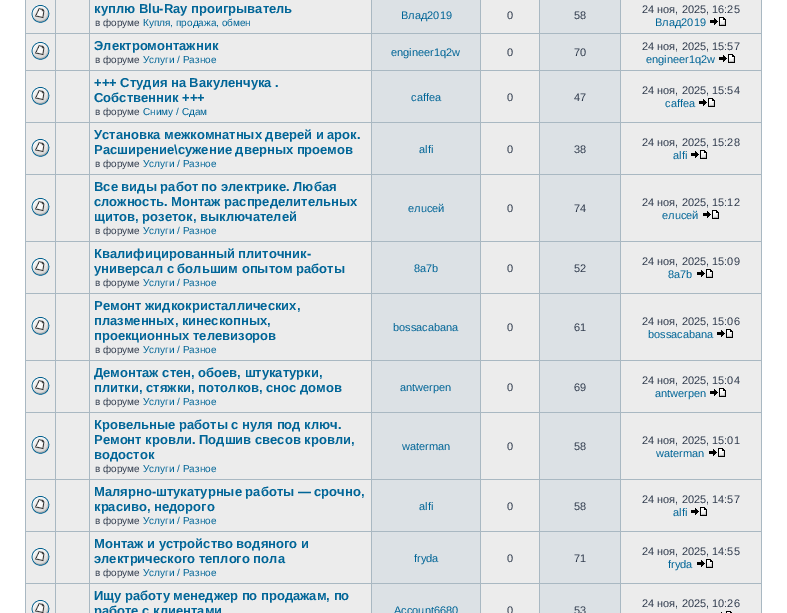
%!PS-Adobe-3.0
%%BoundingBox: 0 0 787 613
%%LanguageLevel: 3
%%Pages: 1
%%EndComments
%%BeginProlog
/drawimage { 5 dict begin { /h /w /y /x /name } { exch def } forall
  gsave x y translate w h scale
  w h 8 [w 0 0 h 0 0] name (r) file false 3 colorimage grestore end } def
%%EndProlog
%%BeginSetup
<< /PageSize [787 613] >> setpagedevice
%%EndSetup
%%Page: 1 1
0 613 translate 1 -1 scale
4 setmiterlimit
1 setgray
0 0 787 613 rectfill
0.663 0.722 0.761 setrgbcolor
25 0 737 613 rectfill
0.925 setgray
26 0 29 33 rectfill
(images/1.raw) 31 5 19 18 drawimage
56 0 33 33 rectfill
90 0 281 33 rectfill
0.863 0.882 0.898 setrgbcolor
372 0 108 33 rectfill
0.925 setgray
481 0 58 33 rectfill
0.863 0.882 0.898 setrgbcolor
540 0 80 33 rectfill
0.925 setgray
621 0 140 33 rectfill
(images/2.raw) 710 17 16 9 drawimage
26 34 29 36 rectfill
(images/1.raw) 31 42 19 18 drawimage
56 34 33 36 rectfill
90 34 281 36 rectfill
0.863 0.882 0.898 setrgbcolor
372 34 108 36 rectfill
0.925 setgray
481 34 58 36 rectfill
0.863 0.882 0.898 setrgbcolor
540 34 80 36 rectfill
0.925 setgray
621 34 140 36 rectfill
(images/2.raw) 719 54 16 9 drawimage
26 71 29 51 rectfill
(images/1.raw) 31 87 19 18 drawimage
56 71 33 51 rectfill
90 71 281 51 rectfill
0.863 0.882 0.898 setrgbcolor
372 71 108 51 rectfill
0.925 setgray
481 71 58 51 rectfill
0.863 0.882 0.898 setrgbcolor
540 71 80 51 rectfill
0.925 setgray
621 71 140 51 rectfill
(images/2.raw) 699 98 16 9 drawimage
26 123 29 51 rectfill
(images/1.raw) 31 139 19 18 drawimage
56 123 33 51 rectfill
90 123 281 51 rectfill
0.863 0.882 0.898 setrgbcolor
372 123 108 51 rectfill
0.925 setgray
481 123 58 51 rectfill
0.863 0.882 0.898 setrgbcolor
540 123 80 51 rectfill
0.925 setgray
621 123 140 51 rectfill
(images/2.raw) 691 150 16 9 drawimage
26 175 29 66 rectfill
(images/1.raw) 31 198 19 18 drawimage
56 175 33 66 rectfill
90 175 281 66 rectfill
0.863 0.882 0.898 setrgbcolor
372 175 108 66 rectfill
0.925 setgray
481 175 58 66 rectfill
0.863 0.882 0.898 setrgbcolor
540 175 80 66 rectfill
0.925 setgray
621 175 140 66 rectfill
(images/2.raw) 703 210 16 9 drawimage
26 242 29 51 rectfill
(images/1.raw) 31 258 19 18 drawimage
56 242 33 51 rectfill
90 242 281 51 rectfill
0.863 0.882 0.898 setrgbcolor
372 242 108 51 rectfill
0.925 setgray
481 242 58 51 rectfill
0.863 0.882 0.898 setrgbcolor
540 242 80 51 rectfill
0.925 setgray
621 242 140 51 rectfill
(images/2.raw) 697 269 16 9 drawimage
26 294 29 66 rectfill
(images/1.raw) 31 317 19 18 drawimage
56 294 33 66 rectfill
90 294 281 66 rectfill
0.863 0.882 0.898 setrgbcolor
372 294 108 66 rectfill
0.925 setgray
481 294 58 66 rectfill
0.863 0.882 0.898 setrgbcolor
540 294 80 66 rectfill
0.925 setgray
621 294 140 66 rectfill
(images/2.raw) 717 329 16 9 drawimage
26 361 29 51 rectfill
(images/1.raw) 31 377 19 18 drawimage
56 361 33 51 rectfill
90 361 281 51 rectfill
0.863 0.882 0.898 setrgbcolor
372 361 108 51 rectfill
0.925 setgray
481 361 58 51 rectfill
0.863 0.882 0.898 setrgbcolor
540 361 80 51 rectfill
0.925 setgray
621 361 140 51 rectfill
(images/2.raw) 710 388 16 9 drawimage
26 413 29 66 rectfill
(images/1.raw) 31 436 19 18 drawimage
56 413 33 66 rectfill
90 413 281 66 rectfill
0.863 0.882 0.898 setrgbcolor
372 413 108 66 rectfill
0.925 setgray
481 413 58 66 rectfill
0.863 0.882 0.898 setrgbcolor
540 413 80 66 rectfill
0.925 setgray
621 413 140 66 rectfill
(images/2.raw) 709 448 16 9 drawimage
26 480 29 51 rectfill
(images/1.raw) 31 496 19 18 drawimage
56 480 33 51 rectfill
90 480 281 51 rectfill
0.863 0.882 0.898 setrgbcolor
372 480 108 51 rectfill
0.925 setgray
481 480 58 51 rectfill
0.863 0.882 0.898 setrgbcolor
540 480 80 51 rectfill
0.925 setgray
621 480 140 51 rectfill
(images/2.raw) 691 507 16 9 drawimage
26 532 29 51 rectfill
(images/1.raw) 31 548 19 18 drawimage
56 532 33 51 rectfill
90 532 281 51 rectfill
0.863 0.882 0.898 setrgbcolor
372 532 108 51 rectfill
0.925 setgray
481 532 58 51 rectfill
0.863 0.882 0.898 setrgbcolor
540 532 80 51 rectfill
0.925 setgray
621 532 140 51 rectfill
(images/2.raw) 697 559 16 9 drawimage
26 584 29 29 rectfill
(images/3.raw) 31 600 19 13 drawimage
56 584 33 29 rectfill
90 584 281 29 rectfill
0.863 0.882 0.898 setrgbcolor
372 584 108 29 rectfill
0.925 setgray
481 584 58 29 rectfill
0.863 0.882 0.898 setrgbcolor
540 584 80 29 rectfill
0.925 setgray
621 584 140 29 rectfill
(images/4.raw) 721 611 11 2 drawimage
/LiberationSans-Bold [13 0 0 -13 0 0] selectfont
0 0.396 0.592 setrgbcolor
94 13 moveto (куплю Blu-Ray проигрыватель) show
/LiberationSans-Regular [10 0 0 -10 0 0] selectfont
0.196 0.239 0.31 setrgbcolor
95 26 moveto (в форуме) show
0 0.396 0.592 setrgbcolor
143 26 moveto (Купля, продажа, обмен) show
/LiberationSans-Regular [11 0 0 -11 0 0] selectfont
401 19 moveto (Влад2019) show
0.196 0.239 0.31 setrgbcolor
507 19 moveto (0) show
574 19 moveto (58) show
642 13 moveto (24 ноя, 2025, 16:25) show
0 0.396 0.592 setrgbcolor
655 26 moveto (Влад2019) show
/LiberationSans-Bold [13 0 0 -13 0 0] selectfont
94 50 moveto (Электромонтажник) show
/LiberationSans-Regular [10 0 0 -10 0 0] selectfont
0.196 0.239 0.31 setrgbcolor
95 63 moveto (в форуме) show
0 0.396 0.592 setrgbcolor
143 63 moveto (Услуги / Разное) show
/LiberationSans-Regular [11 0 0 -11 0 0] selectfont
391 56 moveto (engineer1q2w) show
0.196 0.239 0.31 setrgbcolor
507 56 moveto (0) show
574 56 moveto (70) show
642 50 moveto (24 ноя, 2025, 15:57) show
0 0.396 0.592 setrgbcolor
646 63 moveto (engineer1q2w) show
/LiberationSans-Bold [13 0 0 -13 0 0] selectfont
94 87 moveto (+++ Студия на Вакуленчука .) show
94 102 moveto (Собственник +++) show
/LiberationSans-Regular [10 0 0 -10 0 0] selectfont
0.196 0.239 0.31 setrgbcolor
95 115 moveto (в форуме) show
0 0.396 0.592 setrgbcolor
143 115 moveto (Сниму / Сдам) show
/LiberationSans-Regular [11 0 0 -11 0 0] selectfont
411 101 moveto (caffea) show
0.196 0.239 0.31 setrgbcolor
507 101 moveto (0) show
574 101 moveto (47) show
642 94 moveto (24 ноя, 2025, 15:54) show
0 0.396 0.592 setrgbcolor
665 107 moveto (caffea) show
/LiberationSans-Bold [13 0 0 -13 0 0] selectfont
94 139 moveto (Установка межкомнатных дверей и арок.) show
94 154 moveto (Расширение\\сужение дверных проемов) show
/LiberationSans-Regular [10 0 0 -10 0 0] selectfont
0.196 0.239 0.31 setrgbcolor
95 167 moveto (в форуме) show
0 0.396 0.592 setrgbcolor
143 167 moveto (Услуги / Разное) show
/LiberationSans-Regular [11 0 0 -11 0 0] selectfont
419 153 moveto (alfi) show
0.196 0.239 0.31 setrgbcolor
507 153 moveto (0) show
574 153 moveto (38) show
642 146 moveto (24 ноя, 2025, 15:28) show
0 0.396 0.592 setrgbcolor
673 159 moveto (alfi) show
/LiberationSans-Bold [13 0 0 -13 0 0] selectfont
94 191 moveto (Все виды работ по электрике. Любая) show
94 206 moveto (сложность. Монтаж распределительных) show
94 221 moveto (щитов, розеток, выключателей) show
/LiberationSans-Regular [10 0 0 -10 0 0] selectfont
0.196 0.239 0.31 setrgbcolor
95 234 moveto (в форуме) show
0 0.396 0.592 setrgbcolor
143 234 moveto (Услуги / Разное) show
/LiberationSans-Regular [11 0 0 -11 0 0] selectfont
408 212 moveto (елuсей) show
0.196 0.239 0.31 setrgbcolor
507 212 moveto (0) show
574 212 moveto (74) show
642 206 moveto (24 ноя, 2025, 15:12) show
0 0.396 0.592 setrgbcolor
662 219 moveto (елuсей) show
/LiberationSans-Bold [13 0 0 -13 0 0] selectfont
94 258 moveto (Квалифицированный плиточник-) show
94 273 moveto (универсал с большим опытом работы) show
/LiberationSans-Regular [10 0 0 -10 0 0] selectfont
0.196 0.239 0.31 setrgbcolor
95 286 moveto (в форуме) show
0 0.396 0.592 setrgbcolor
143 286 moveto (Услуги / Разное) show
/LiberationSans-Regular [11 0 0 -11 0 0] selectfont
414 272 moveto (8a7b) show
0.196 0.239 0.31 setrgbcolor
507 272 moveto (0) show
574 272 moveto (52) show
642 265 moveto (24 ноя, 2025, 15:09) show
0 0.396 0.592 setrgbcolor
668 278 moveto (8a7b) show
/LiberationSans-Bold [13 0 0 -13 0 0] selectfont
94 310 moveto (Ремонт жидкокристаллических,) show
94 325 moveto (плазменных, кинескопных,) show
94 340 moveto (проекционных телевизоров) show
/LiberationSans-Regular [10 0 0 -10 0 0] selectfont
0.196 0.239 0.31 setrgbcolor
95 353 moveto (в форуме) show
0 0.396 0.592 setrgbcolor
143 353 moveto (Услуги / Разное) show
/LiberationSans-Regular [11 0 0 -11 0 0] selectfont
393 331 moveto (bossacabana) show
0.196 0.239 0.31 setrgbcolor
507 331 moveto (0) show
574 331 moveto (61) show
642 325 moveto (24 ноя, 2025, 15:06) show
0 0.396 0.592 setrgbcolor
648 338 moveto (bossacabana) show
/LiberationSans-Bold [13 0 0 -13 0 0] selectfont
94 377 moveto (Демонтаж стен, обоев, штукатурки,) show
94 392 moveto (плитки, стяжки, потолков, снос домов) show
/LiberationSans-Regular [10 0 0 -10 0 0] selectfont
0.196 0.239 0.31 setrgbcolor
95 405 moveto (в форуме) show
0 0.396 0.592 setrgbcolor
143 405 moveto (Услуги / Разное) show
/LiberationSans-Regular [11 0 0 -11 0 0] selectfont
400 391 moveto (antwerpen) show
0.196 0.239 0.31 setrgbcolor
507 391 moveto (0) show
574 391 moveto (69) show
642 384 moveto (24 ноя, 2025, 15:04) show
0 0.396 0.592 setrgbcolor
655 397 moveto (antwerpen) show
/LiberationSans-Bold [13 0 0 -13 0 0] selectfont
94 429 moveto (Кровельные работы с нуля под ключ.) show
94 444 moveto (Ремонт кровли. Подшив свесов кровли,) show
94 459 moveto (водосток) show
/LiberationSans-Regular [10 0 0 -10 0 0] selectfont
0.196 0.239 0.31 setrgbcolor
95 472 moveto (в форуме) show
0 0.396 0.592 setrgbcolor
143 472 moveto (Услуги / Разное) show
/LiberationSans-Regular [11 0 0 -11 0 0] selectfont
402 450 moveto (waterman) show
0.196 0.239 0.31 setrgbcolor
507 450 moveto (0) show
574 450 moveto (58) show
642 444 moveto (24 ноя, 2025, 15:01) show
0 0.396 0.592 setrgbcolor
656 457 moveto (waterman) show
/LiberationSans-Bold [13 0 0 -13 0 0] selectfont
94 496 moveto (Малярно-штукатурные работы — срочно,) show
94 511 moveto (красиво, недорого) show
/LiberationSans-Regular [10 0 0 -10 0 0] selectfont
0.196 0.239 0.31 setrgbcolor
95 524 moveto (в форуме) show
0 0.396 0.592 setrgbcolor
143 524 moveto (Услуги / Разное) show
/LiberationSans-Regular [11 0 0 -11 0 0] selectfont
419 510 moveto (alfi) show
0.196 0.239 0.31 setrgbcolor
507 510 moveto (0) show
574 510 moveto (58) show
642 503 moveto (24 ноя, 2025, 14:57) show
0 0.396 0.592 setrgbcolor
673 516 moveto (alfi) show
/LiberationSans-Bold [13 0 0 -13 0 0] selectfont
94 548 moveto (Монтаж и устройство водяного и) show
94 563 moveto (электрического теплого пола) show
/LiberationSans-Regular [10 0 0 -10 0 0] selectfont
0.196 0.239 0.31 setrgbcolor
95 576 moveto (в форуме) show
0 0.396 0.592 setrgbcolor
143 576 moveto (Услуги / Разное) show
/LiberationSans-Regular [11 0 0 -11 0 0] selectfont
414 562 moveto (fryda) show
0.196 0.239 0.31 setrgbcolor
507 562 moveto (0) show
574 562 moveto (71) show
642 555 moveto (24 ноя, 2025, 14:55) show
0 0.396 0.592 setrgbcolor
668 568 moveto (fryda) show
/LiberationSans-Bold [13 0 0 -13 0 0] selectfont
94 600 moveto (Ищу работу менеджер по продажам, по) show
94 615 moveto (работе с клиентами) show
/LiberationSans-Regular [11 0 0 -11 0 0] selectfont
394 614 moveto (Account6680) show
0.196 0.239 0.31 setrgbcolor
507 614 moveto (0) show
574 614 moveto (53) show
642 607 moveto (24 ноя, 2025, 10:26) show
showpage
%%EOF
